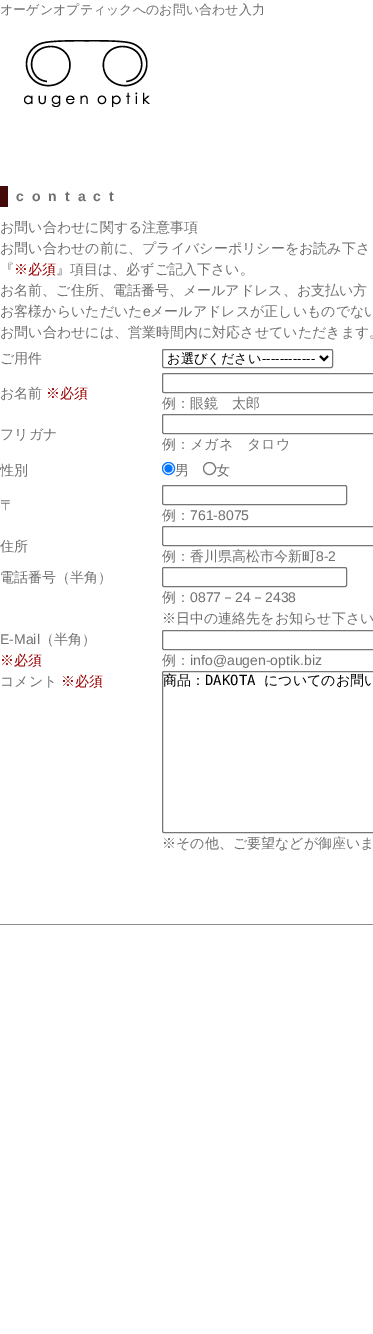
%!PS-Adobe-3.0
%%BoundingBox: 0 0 373 1334
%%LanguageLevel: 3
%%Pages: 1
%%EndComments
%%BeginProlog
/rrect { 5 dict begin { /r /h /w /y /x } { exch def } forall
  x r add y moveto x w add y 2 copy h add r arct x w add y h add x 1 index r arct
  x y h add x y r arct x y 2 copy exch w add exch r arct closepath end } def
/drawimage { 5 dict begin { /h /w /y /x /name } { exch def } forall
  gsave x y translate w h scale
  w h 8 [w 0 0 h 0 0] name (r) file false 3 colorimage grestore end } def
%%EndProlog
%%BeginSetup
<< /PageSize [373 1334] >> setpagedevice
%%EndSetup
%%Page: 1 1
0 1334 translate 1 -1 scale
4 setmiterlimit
1 setgray
0 0 373 1334 rectfill
(images/1.raw) 24 40 126 67 drawimage
0.267 0.039 0.035 setrgbcolor
0 186 8 21 rectfill
0.463 setgray
162.5 349.5 170 18 1.5 rrect stroke
0 setgray
2 setlinewidth
newpath 320 356 moveto 324 360 lineto 328 356 lineto stroke
0.463 setgray
1 setlinewidth
162.5 373.5 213 19 1.5 rrect stroke
162.5 414.5 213 19 1.5 rrect stroke
0 0.459 1 setrgbcolor
newpath 168.5 468.5 6 0 360 arc closepath stroke
newpath 168.5 468.5 4 0 360 arc closepath fill
0.463 setgray
newpath 209.5 468.5 6 0 360 arc closepath stroke
162.5 485.5 184 19 1.5 rrect stroke
162.5 526.5 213 19 1.5 rrect stroke
162.5 567.5 184 19 1.5 rrect stroke
162.5 630.5 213 19 1.5 rrect stroke
162.5 671.5 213 161 1.5 rrect stroke
0.569 0.545 0.541 setrgbcolor
0 924 373 1 rectfill
/WenQuanYiZenHei-Medium [13 0 0 -13 0 0] selectfont
0.443 0.439 0.443 setrgbcolor
0 14 moveto (オーゲンオプティックへのお問い合わせ入力) show
/LiberationSans-Bold [14 0 0 -14 0 0] selectfont
16 201 moveto 8 0 (contact) ashow
/WenQuanYiZenHei-Medium [14 0 0 -14 0 0] selectfont
0 232 moveto (お問い合わせに関する注意事項) show
0 253 moveto (お問い合わせの前に、プライバシーポリシーをお読み下さ) show
0 274 moveto (『) show
0.6 0 0 setrgbcolor
14 274 moveto (※必須) show
0.443 0.439 0.443 setrgbcolor
56 274 moveto (』項目は、必ずご記入下さい。) show
0 295 moveto (お名前、ご住所、電話番号、メールアドレス、お支払い方) show
0 316 moveto (お客様からいただいた) show
/LiberationSans-Regular [14 0 0 -14 0 0] selectfont
143 316 moveto (e) show
/WenQuanYiZenHei-Medium [14 0 0 -14 0 0] selectfont
150 316 moveto (メールアドレスが正しいものでない) show
0 337 moveto (お問い合わせには、営業時間内に対応させていただきます。) show
0 363 moveto (ご用件) show
/WenQuanYiZenHei-Medium [13.25 0 0 -13.25 0 0] selectfont
0 setgray
167 363 moveto (お選びください) show
/LiberationSans-Regular [13.25 0 0 -13.25 0 0] selectfont
262 363 moveto (------------) show
/WenQuanYiZenHei-Medium [14 0 0 -14 0 0] selectfont
0.443 0.439 0.443 setrgbcolor
0 398 moveto (お名前) show
0.6 0 0 setrgbcolor
46 398 moveto (※必須) show
0.443 0.439 0.443 setrgbcolor
162 408 moveto (例：眼鏡　太郎) show
0 439 moveto (フリガナ) show
162 449 moveto (例：メガネ　タロウ) show
0 475 moveto (性別) show
175 475 moveto (男) show
216 475 moveto (女) show
0 510 moveto (〒) show
162 520 moveto (例：) show
/LiberationSans-Regular [14 0 0 -14 0 0] selectfont
190 520 moveto (761-8075) show
/WenQuanYiZenHei-Medium [14 0 0 -14 0 0] selectfont
0 551 moveto (住所) show
162 561 moveto (例：香川県高松市今新町) show
/LiberationSans-Regular [14 0 0 -14 0 0] selectfont
316 561 moveto (8-2) show
/WenQuanYiZenHei-Medium [14 0 0 -14 0 0] selectfont
0 582 moveto (電話番号（半角）) show
162 602 moveto (例：) show
/LiberationSans-Regular [14 0 0 -14 0 0] selectfont
190 602 moveto (0877) show
/WenQuanYiZenHei-Medium [14 0 0 -14 0 0] selectfont
221 602 moveto (－) show
/LiberationSans-Regular [14 0 0 -14 0 0] selectfont
235 602 moveto (24) show
/WenQuanYiZenHei-Medium [14 0 0 -14 0 0] selectfont
251 602 moveto (－) show
/LiberationSans-Regular [14 0 0 -14 0 0] selectfont
265 602 moveto (2438) show
/WenQuanYiZenHei-Medium [14 0 0 -14 0 0] selectfont
162 623 moveto (※日中の連絡先をお知らせ下さい) show
/LiberationSans-Regular [14 0 0 -14 0 0] selectfont
0 644 moveto (E-Mail) show
/WenQuanYiZenHei-Medium [14 0 0 -14 0 0] selectfont
40 644 moveto (（半角）) show
0.6 0 0 setrgbcolor
0 665 moveto (※必須) show
0.443 0.439 0.443 setrgbcolor
162 665 moveto (例：) show
/LiberationSans-Regular [14 0 0 -14 0 0] selectfont
190 665 moveto (info@augen-optik.biz) show
/WenQuanYiZenHei-Medium [14 0 0 -14 0 0] selectfont
0 686 moveto (コメント) show
0.6 0 0 setrgbcolor
61 686 moveto (※必須) show
0 setgray
163 685 moveto (商品：) show
/DejaVuSansMono-Regular [14 0 0 -14 0 0] selectfont
205 685 moveto (DAKOTA) show
/WenQuanYiZenHei-Medium [14 0 0 -14 0 0] selectfont
264 685 moveto (についてのお問い) show
0.443 0.439 0.443 setrgbcolor
162 848 moveto (※その他、ご要望などが御座いま) show
showpage
%%EOF
